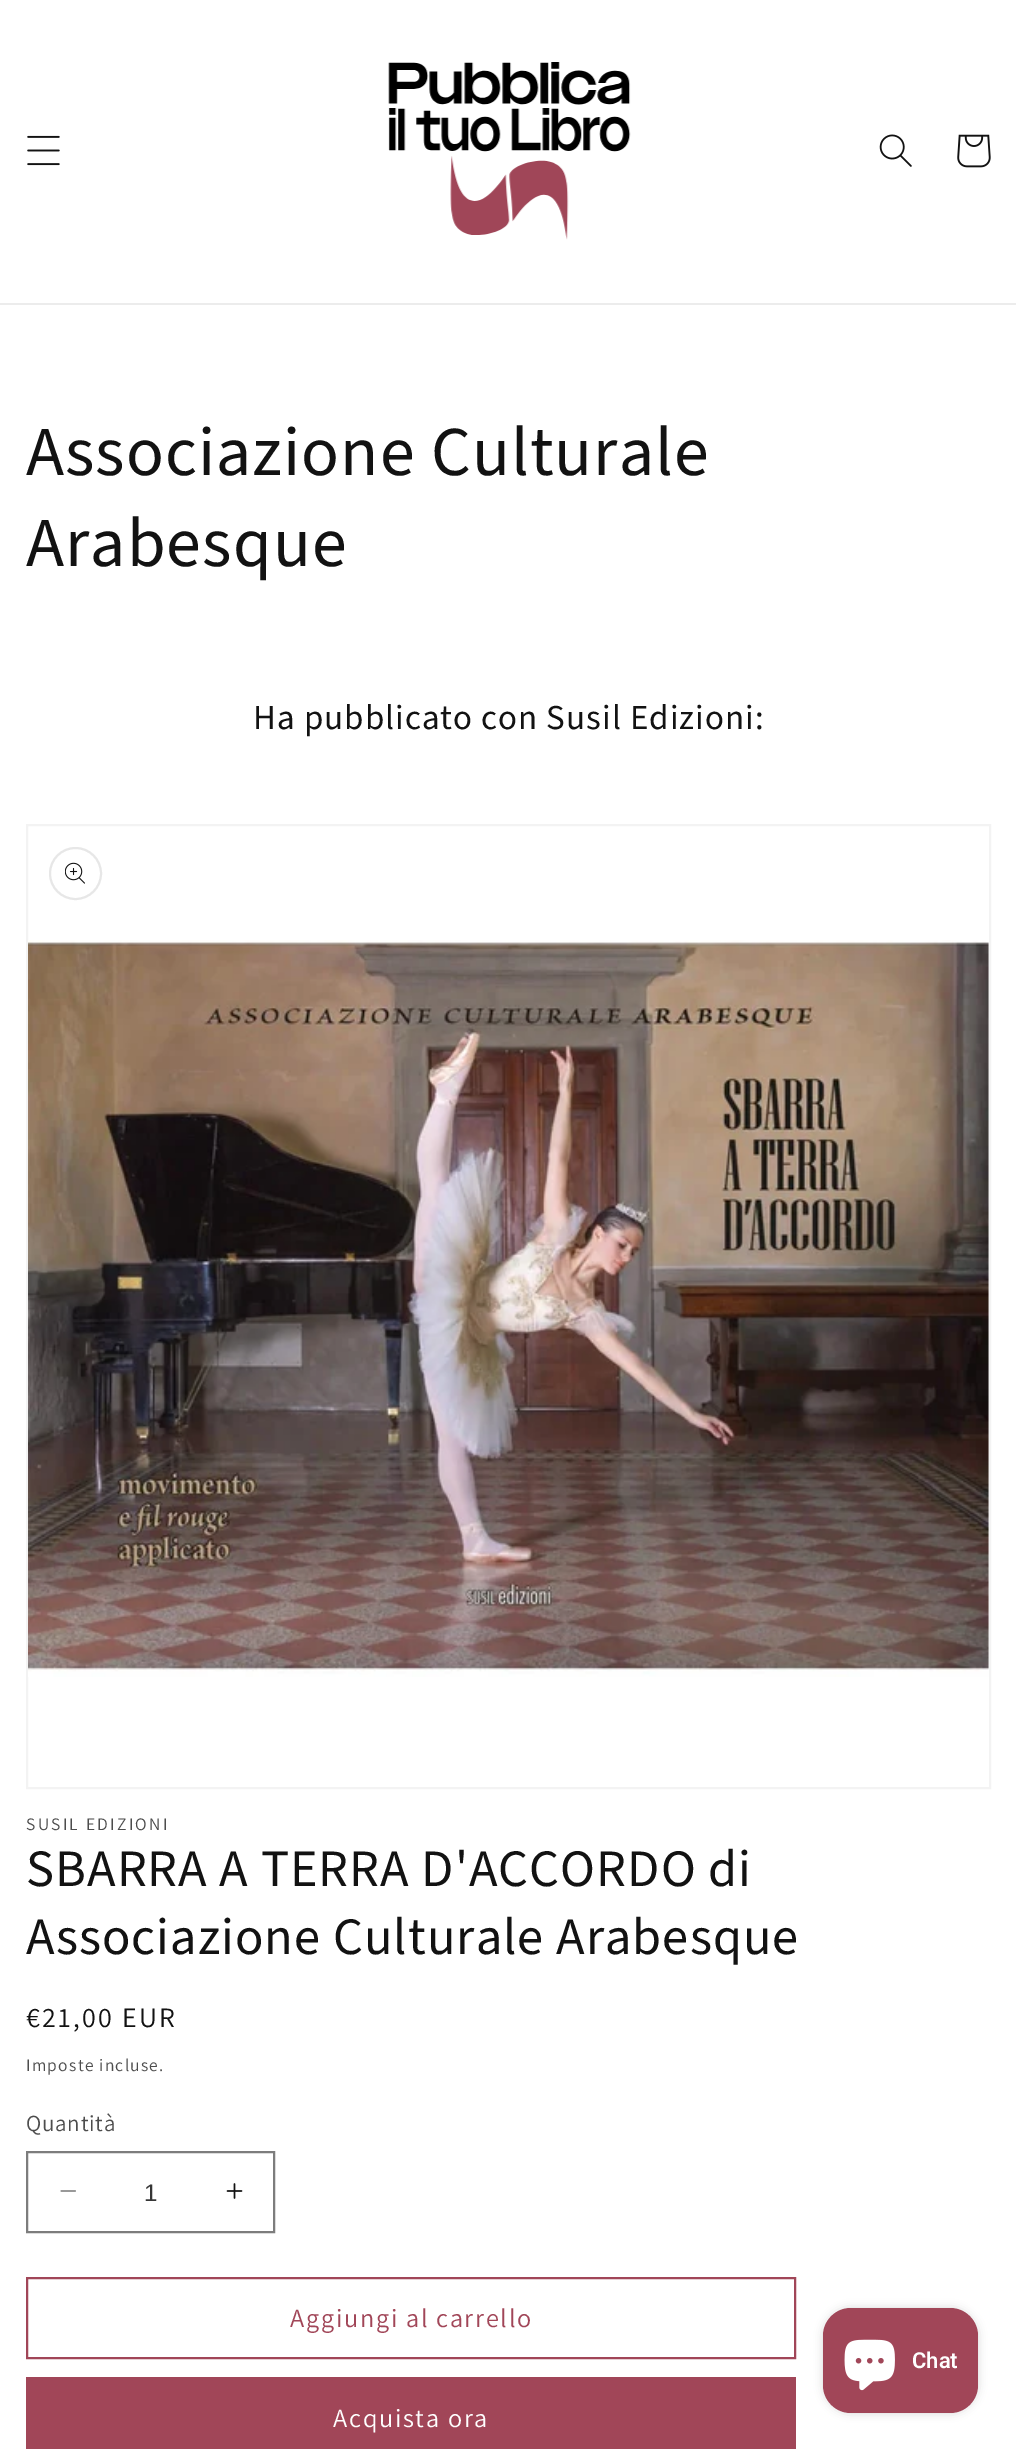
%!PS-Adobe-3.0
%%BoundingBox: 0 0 1016 2449
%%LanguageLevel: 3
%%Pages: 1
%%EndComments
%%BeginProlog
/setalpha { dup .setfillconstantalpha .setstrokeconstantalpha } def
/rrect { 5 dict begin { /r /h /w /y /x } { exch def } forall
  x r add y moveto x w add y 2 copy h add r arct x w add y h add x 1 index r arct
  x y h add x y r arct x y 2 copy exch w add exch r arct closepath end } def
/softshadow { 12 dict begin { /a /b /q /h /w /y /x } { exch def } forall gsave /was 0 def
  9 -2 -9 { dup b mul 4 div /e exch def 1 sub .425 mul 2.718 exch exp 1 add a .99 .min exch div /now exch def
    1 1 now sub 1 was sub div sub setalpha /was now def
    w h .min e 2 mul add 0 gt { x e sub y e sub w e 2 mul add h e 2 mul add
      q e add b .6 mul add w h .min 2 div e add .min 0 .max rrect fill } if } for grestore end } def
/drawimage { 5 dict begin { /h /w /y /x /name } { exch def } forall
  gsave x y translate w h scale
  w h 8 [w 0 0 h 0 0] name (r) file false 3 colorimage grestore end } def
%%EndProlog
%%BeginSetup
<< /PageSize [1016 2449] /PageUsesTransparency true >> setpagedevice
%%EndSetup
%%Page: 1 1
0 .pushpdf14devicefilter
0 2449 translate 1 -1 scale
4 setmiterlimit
1 setgray
0 0 1016 2449 rectfill
0.925 setgray
0 303 1016 2 rectfill
(images/1.raw) 27 135 33 31 drawimage
(images/2.raw) 388 62 243 178 drawimage
(images/3.raw) 879 134 33 33 drawimage
(images/4.raw) 957 134 34 34 drawimage
0.953 setgray
2 setlinewidth
27 825 963 963 rectstroke
0.906 setgray
newpath 75.5 873.5 25.5 0 360 arc closepath stroke
(images/5.raw) 65 862 20 22 drawimage
(images/6.raw) 28 940 961 737 drawimage
(images/7.raw) 60 2190 16 2 drawimage
(images/8.raw) 226 2183 17 16 drawimage
0.49 setgray
27 2152 247 80 rectstroke
0.631 0.275 0.345 setrgbcolor
27 2278 768 80 rectstroke
26 2377 770 72 rectfill
0 setgray
823 2308 155 105 28 4.5 0.15 softshadow
0.631 0.275 0.345 setrgbcolor
823 2308 155 105 28 rrect fill
(images/9.raw) 844 2339 51 52 drawimage
/SourceSansPro-Regular [70 0 0 -70 0 0] selectfont
0.071 setgray
26 475 moveto 1.05 0 (Associazione Culturale) ashow
26 566 moveto 1.05 0 (Arabesque) ashow
/SourceSansPro-Regular [35 0 0 -35 0 0] selectfont
253 729 moveto 1.05 0 (Ha pubblicato con Susil Edizioni:) ashow
/Assistant-Regular [17.5 0 0 -17.5 0 0] selectfont
0.302 setgray
26 1830 moveto 2.25 0 (SUSIL EDIZIONI) ashow
/SourceSansPro-Regular [52.5 0 0 -52.5 0 0] selectfont
0.071 setgray
26 1886 moveto 1.05 0 (SBARRA A TERRA D'ACCORDO di) ashow
26 1954 moveto 1.05 0 (Associazione Culturale Arabesque) ashow
/Assistant-Regular [28 0 0 -28 0 0] selectfont
26 2027 moveto 2.25 0 (€21,00 EUR) ashow
/Assistant-Regular [17.5 0 0 -17.5 0 0] selectfont
0.302 setgray
26 2071 moveto 1.25 0 (Imposte incluse.) ashow
/Assistant-Regular [23 0 0 -23 0 0] selectfont
26 2131 moveto 0.75 0 (Quantità) ashow
/LiberationSans-Regular [24 0 0 -24 0 0] selectfont
0.212 setgray
144 2201 moveto (1) show
/Assistant-Regular [26.25 0 0 -26.25 0 0] selectfont
0.631 0.275 0.345 setrgbcolor
290 2327 moveto 1.75 0 (Aggiungi al carrello) ashow
1 setgray
333 2427 moveto 1.75 0 (Acquista ora) ashow
/Roboto-SemiBold [22 0 0 -22 0 0] selectfont
912 2368 moveto (Chat) show
.poppdf14devicefilter showpage
%%EOF
